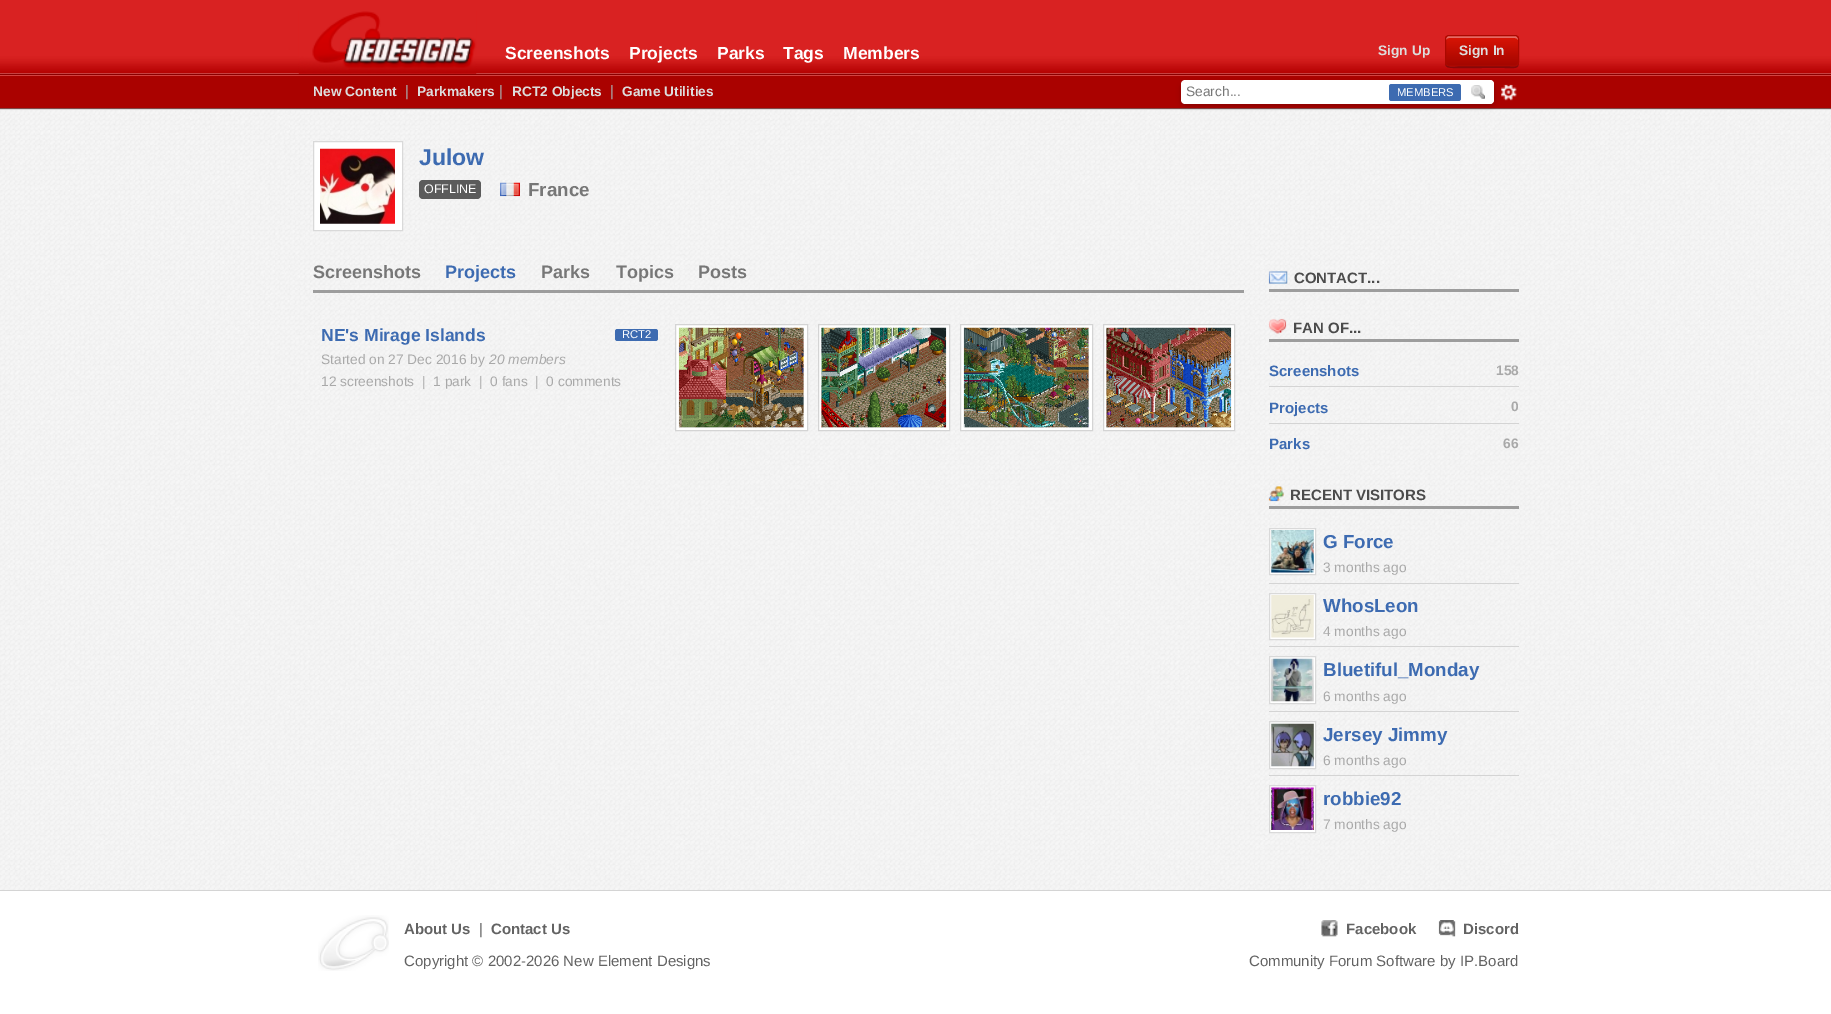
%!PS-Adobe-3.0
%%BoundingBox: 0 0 1831 1014
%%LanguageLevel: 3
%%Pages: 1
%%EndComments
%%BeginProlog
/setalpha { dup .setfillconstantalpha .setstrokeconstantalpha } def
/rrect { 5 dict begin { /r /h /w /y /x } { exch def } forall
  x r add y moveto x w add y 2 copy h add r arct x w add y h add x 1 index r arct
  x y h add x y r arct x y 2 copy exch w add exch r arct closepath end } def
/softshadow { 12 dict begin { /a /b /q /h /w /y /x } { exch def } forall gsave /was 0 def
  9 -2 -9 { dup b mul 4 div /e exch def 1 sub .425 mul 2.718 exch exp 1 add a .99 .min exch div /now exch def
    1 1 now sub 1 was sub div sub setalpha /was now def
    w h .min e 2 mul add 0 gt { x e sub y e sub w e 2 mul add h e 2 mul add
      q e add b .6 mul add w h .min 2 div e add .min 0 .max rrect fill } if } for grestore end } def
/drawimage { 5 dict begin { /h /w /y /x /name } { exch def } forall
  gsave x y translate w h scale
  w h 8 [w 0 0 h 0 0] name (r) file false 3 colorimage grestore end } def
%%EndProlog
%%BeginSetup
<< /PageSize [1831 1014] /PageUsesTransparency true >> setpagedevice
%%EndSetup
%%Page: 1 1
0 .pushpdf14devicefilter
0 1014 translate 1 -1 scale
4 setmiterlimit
1 setgray
0 0 1831 1014 rectfill
(images/1.raw) 0 0 1831 74 drawimage
0.541 0 0 setrgbcolor
0 74 1831 1 rectfill
(images/2.raw) 298 11 179 63 drawimage
0.3 setalpha
0 setgray
newpath 1445 62 moveto 1445 64 1445 66 1447 67 curveto 1449 69 1477 68 1482 68 curveto 1504 68 lineto 1519 68 1519 70 1519 56 curveto 1519 39 lineto 1519 59 lineto 1519 69 1515 66 1504 66 curveto 1460 66 lineto 1458 66 1445 69 1445 62 curveto closepath fill
gsave
1445 35 74 31 4 rrect clip newpath
1 setalpha
gsave newpath 1445 36 moveto 1519 36 lineto 1519 65 lineto 1445 65 lineto closepath clip newpath
<< /ShadingType 2 /ColorSpace /DeviceRGB /Coords [1446 36 1446 65] /Extend [true true] /Function << /FunctionType 2 /Domain [0 1] /C0 [0.859 0.082 0.02] /C1 [0.647 0.024 0] /N 1 >> >> shfill grestore
grestore
1 setalpha
0.898 0.42 0.396 setrgbcolor
newpath 1449 38 moveto 1515 38 lineto 1516 38 1518 39 1518 40 curveto 1518 33 1510 36 1504 36 curveto 1460 36 lineto 1454 36 1446 33 1446 40 curveto 1446 39 1447 38 1449 38 curveto closepath fill
0.671 0.031 0 setrgbcolor
1445.5 35.5 73 30 3.5 rrect stroke
0.667 0.008 0 setrgbcolor
0 76 1831 32 rectfill
0.835 0.259 0.251 setrgbcolor
0 75 1831 1 rectfill
0.345 0.059 0.055 setrgbcolor
0 108 1831 1 rectfill
(images/4.raw) 1501 84 16 17 drawimage
(images/5.raw) 0 108 1831 782 drawimage
0.851 setgray
0 109 1831 1 rectfill
0 setgray
1181 83 313 23 5 2.5 0.2 softshadow
1 setgray
newpath 1185 80 moveto 1489 80 lineto 1492 80 1494 82 1494 85 curveto 1494 99 lineto 1494 102 1492 104 1489 104 curveto 1185 104 lineto 1183 104 1181 102 1181 100 curveto 1181 84 lineto 1181 82 1183 80 1185 80 curveto closepath fill
0.239 0.42 0.694 setrgbcolor
1389 84 72 17 2.5 rrect fill
1 setgray
newpath 1463 80 moveto 1490 80 lineto 1492 80 1494 82 1494 84 curveto 1494 100 lineto 1494 102 1492 104 1490 104 curveto 1463 104 lineto closepath fill
(images/3.raw) 1471 85 14 14 drawimage
0.2 setalpha
newpath 1463 80 moveto 1463 81 lineto 1485 81 lineto 1491.5 81 1493.5 81.5 1494 84.5 curveto 1494 82 1492.5 80 1490 80 curveto closepath fill
1 setalpha
newpath 313.5 141.5 moveto 402.5 141.5 lineto 402.5 230.5 lineto 313.5 230.5 lineto closepath gsave fill grestore
0.851 setgray
stroke
(images/6.raw) 320 148 75 76 drawimage
0.357 setgray
419 180 62 19 4 rrect fill
(images/7.raw) 500 182 20 15 drawimage
0.616 setgray
313 290 931 3 rectfill
0.239 0.42 0.694 setrgbcolor
615 329 43 12 2.5 rrect fill
1 setgray
newpath 675.5 324.5 moveto 807.5 324.5 lineto 807.5 430.5 lineto 675.5 430.5 lineto closepath gsave fill grestore
0.831 setgray
stroke
0.91 setgray
679 328 125 100 rectfill
(images/8.raw) 678 327 126 101 drawimage
1 setgray
newpath 818.5 324.5 moveto 949.5 324.5 lineto 949.5 430.5 lineto 818.5 430.5 lineto closepath gsave fill grestore
0.831 setgray
stroke
0.91 setgray
821 328 125 100 rectfill
(images/9.raw) 821 327 126 101 drawimage
1 setgray
newpath 960.5 324.5 moveto 1092.5 324.5 lineto 1092.5 430.5 lineto 960.5 430.5 lineto closepath gsave fill grestore
0.831 setgray
stroke
0.91 setgray
964 328 125 100 rectfill
(images/10.raw) 963 327 126 101 drawimage
1 setgray
newpath 1103.5 324.5 moveto 1234.5 324.5 lineto 1234.5 430.5 lineto 1103.5 430.5 lineto closepath gsave fill grestore
0.831 setgray
stroke
0.91 setgray
1106 328 125 100 rectfill
(images/11.raw) 1106 327 126 101 drawimage
0.616 setgray
1269 289 250 3 rectfill
(images/12.raw) 1268 271 20 13 drawimage
1269 339 250 3 rectfill
(images/13.raw) 1268 318 19 16 drawimage
0.831 setgray
1269 386 250 1 rectfill
1269 423 250 1 rectfill
0.616 setgray
1269 506 250 3 rectfill
(images/14.raw) 1268 486 16 16 drawimage
0.831 setgray
1269 583 250 1 rectfill
1 setgray
newpath 1269.5 528.5 moveto 1315.5 528.5 lineto 1315.5 574.5 lineto 1269.5 574.5 lineto closepath gsave fill grestore
0.851 setgray
stroke
(images/15.raw) 1271 530 43 43 drawimage
0.831 setgray
1269 646 250 1 rectfill
1 setgray
newpath 1269.5 593.5 moveto 1315.5 593.5 lineto 1315.5 639.5 lineto 1269.5 639.5 lineto closepath gsave fill grestore
0.851 setgray
stroke
(images/16.raw) 1271 595 43 43 drawimage
0.831 setgray
1269 711 250 1 rectfill
1 setgray
newpath 1269.5 656.5 moveto 1315.5 656.5 lineto 1315.5 703.5 lineto 1269.5 703.5 lineto closepath gsave fill grestore
0.851 setgray
stroke
(images/17.raw) 1271 658 43 44 drawimage
0.831 setgray
1269 775 250 1 rectfill
1 setgray
newpath 1269.5 721.5 moveto 1315.5 721.5 lineto 1315.5 768.5 lineto 1269.5 768.5 lineto closepath gsave fill grestore
0.851 setgray
stroke
(images/18.raw) 1271 723 43 44 drawimage
1 setgray
newpath 1269.5 785.5 moveto 1315.5 785.5 lineto 1315.5 832.5 lineto 1269.5 832.5 lineto closepath gsave fill grestore
0.851 setgray
stroke
(images/19.raw) 1271 787 43 43 drawimage
0.831 setgray
0 890 1831 1 rectfill
(images/20.raw) 318 915 71 56 drawimage
(images/21.raw) 1321 920 17 17 drawimage
(images/22.raw) 1438 920 18 17 drawimage
/LiberationSans-Bold [17.5 0 0 -17.5 0 0] selectfont
1 setgray
505 59 moveto (Screenshots) show
629 59 moveto (Projects) show
717 59 moveto (Parks) show
783 59 moveto (Tags) show
843 59 moveto (Members) show
/LiberationSans-Bold [13.75 0 0 -13.75 0 0] selectfont
0.867 setgray
1378 55 moveto (Sign Up) show
1459 55 moveto (Sign In) show
313 96 moveto (New Content) show
/LiberationSans-Regular [15 0 0 -15 0 0] selectfont
0.663 setgray
405 96 moveto (|) show
/LiberationSans-Bold [13.75 0 0 -13.75 0 0] selectfont
0.867 setgray
417 96 moveto (Parkmakers) show
/LiberationSans-Regular [15 0 0 -15 0 0] selectfont
0.663 setgray
499 96 moveto (|) show
/LiberationSans-Bold [13.75 0 0 -13.75 0 0] selectfont
0.867 setgray
512 96 moveto (RCT2 Objects) show
/LiberationSans-Regular [15 0 0 -15 0 0] selectfont
0.663 setgray
610 96 moveto (|) show
/LiberationSans-Bold [13.75 0 0 -13.75 0 0] selectfont
0.867 setgray
622 96 moveto (Game Utilities) show
/LiberationSans-Regular [13.75 0 0 -13.75 0 0] selectfont
0.467 setgray
1186 96 moveto (Search...) show
/LiberationSans-Regular [11.25 0 0 -11.25 0 0] selectfont
1 setgray
1397 96 moveto (MEMBERS) show
/LiberationSans-Bold [23 0 0 -23 0 0] selectfont
0.239 0.42 0.694 setrgbcolor
419 165 moveto (Julow) show
/LiberationSans-Regular [12.5 0 0 -12.5 0 0] selectfont
1 setgray
424 193 moveto (OFFLINE) show
/LiberationSans-Bold [18.75 0 0 -18.75 0 0] selectfont
0.467 setgray
528 196 moveto (France) show
/LiberationSans-Bold [18 0 0 -18 0 0] selectfont
313 278 moveto (Screenshots) show
0.239 0.42 0.694 setrgbcolor
445 278 moveto (Projects) show
0.467 setgray
541 278 moveto (Parks) show
616 278 moveto (Topics) show
698 278 moveto (Posts) show
/LiberationSans-Bold [17.5 0 0 -17.5 0 0] selectfont
0.239 0.42 0.694 setrgbcolor
321 341 moveto (NE's Mirage Islands) show
/LiberationSans-Regular [11.25 0 0 -11.25 0 0] selectfont
1 setgray
622 338 moveto (RCT2) show
/LiberationSans-Regular [13.75 0 0 -13.75 0 0] selectfont
0.663 setgray
321 364 moveto (Started on 27 Dec 2016 by) show
/LiberationSans-Italic [13.75 0 0 -13.75 0 0] selectfont
489 364 moveto (20 members) show
/LiberationSans-Regular [13.75 0 0 -13.75 0 0] selectfont
321 386 moveto (12 screenshots  |  1 park  |  0 fans  |  0 comments) show
/LiberationSans-Bold [15 0 0 -15 0 0] selectfont
0.294 setgray
1294 283 moveto (CONTACT...) show
1293 333 moveto (FAN OF...) show
0.239 0.42 0.694 setrgbcolor
1269 376 moveto (Screenshots) show
/LiberationSans-Bold [13.75 0 0 -13.75 0 0] selectfont
0.663 setgray
1496 375 moveto (158) show
/LiberationSans-Bold [15 0 0 -15 0 0] selectfont
0.239 0.42 0.694 setrgbcolor
1269 413 moveto (Projects) show
/LiberationSans-Bold [13.75 0 0 -13.75 0 0] selectfont
0.663 setgray
1511 411 moveto (0) show
/LiberationSans-Bold [15 0 0 -15 0 0] selectfont
0.239 0.42 0.694 setrgbcolor
1269 449 moveto (Parks) show
/LiberationSans-Bold [13.75 0 0 -13.75 0 0] selectfont
0.663 setgray
1503 448 moveto (66) show
/LiberationSans-Bold [15 0 0 -15 0 0] selectfont
0.294 setgray
1290 500 moveto (RECENT VISITORS) show
/LiberationSans-Bold [18.75 0 0 -18.75 0 0] selectfont
0.239 0.42 0.694 setrgbcolor
1323 548 moveto (G Force) show
/LiberationSans-Regular [13.75 0 0 -13.75 0 0] selectfont
0.663 setgray
1323 572 moveto (3 months ago) show
/LiberationSans-Bold [18.75 0 0 -18.75 0 0] selectfont
0.239 0.42 0.694 setrgbcolor
1323 612 moveto (WhosLeon) show
/LiberationSans-Regular [13.75 0 0 -13.75 0 0] selectfont
0.663 setgray
1323 636 moveto (4 months ago) show
/LiberationSans-Bold [18.75 0 0 -18.75 0 0] selectfont
0.239 0.42 0.694 setrgbcolor
1323 676 moveto (Bluetiful_Monday) show
/LiberationSans-Regular [13.75 0 0 -13.75 0 0] selectfont
0.663 setgray
1323 701 moveto (6 months ago) show
/LiberationSans-Bold [18.75 0 0 -18.75 0 0] selectfont
0.239 0.42 0.694 setrgbcolor
1323 741 moveto (Jersey Jimmy) show
/LiberationSans-Regular [13.75 0 0 -13.75 0 0] selectfont
0.663 setgray
1323 765 moveto (6 months ago) show
/LiberationSans-Bold [18.75 0 0 -18.75 0 0] selectfont
0.239 0.42 0.694 setrgbcolor
1323 805 moveto (robbie92) show
/LiberationSans-Regular [13.75 0 0 -13.75 0 0] selectfont
0.663 setgray
1323 829 moveto (7 months ago) show
/LiberationSans-Bold [15 0 0 -15 0 0] selectfont
0.388 setgray
404 934 moveto (About Us) show
/LiberationSans-Regular [15 0 0 -15 0 0] selectfont
479 934 moveto (|) show
/LiberationSans-Bold [15 0 0 -15 0 0] selectfont
491 934 moveto (Contact Us) show
1346 934 moveto (Facebook) show
1463 934 moveto (Discord) show
/LiberationSans-Regular [15 0 0 -15 0 0] selectfont
404 966 moveto (Copyright © 2002-2026 New Element Designs) show
1249 966 moveto (Community Forum Software by IP.Board) show
.poppdf14devicefilter showpage
%%EOF
